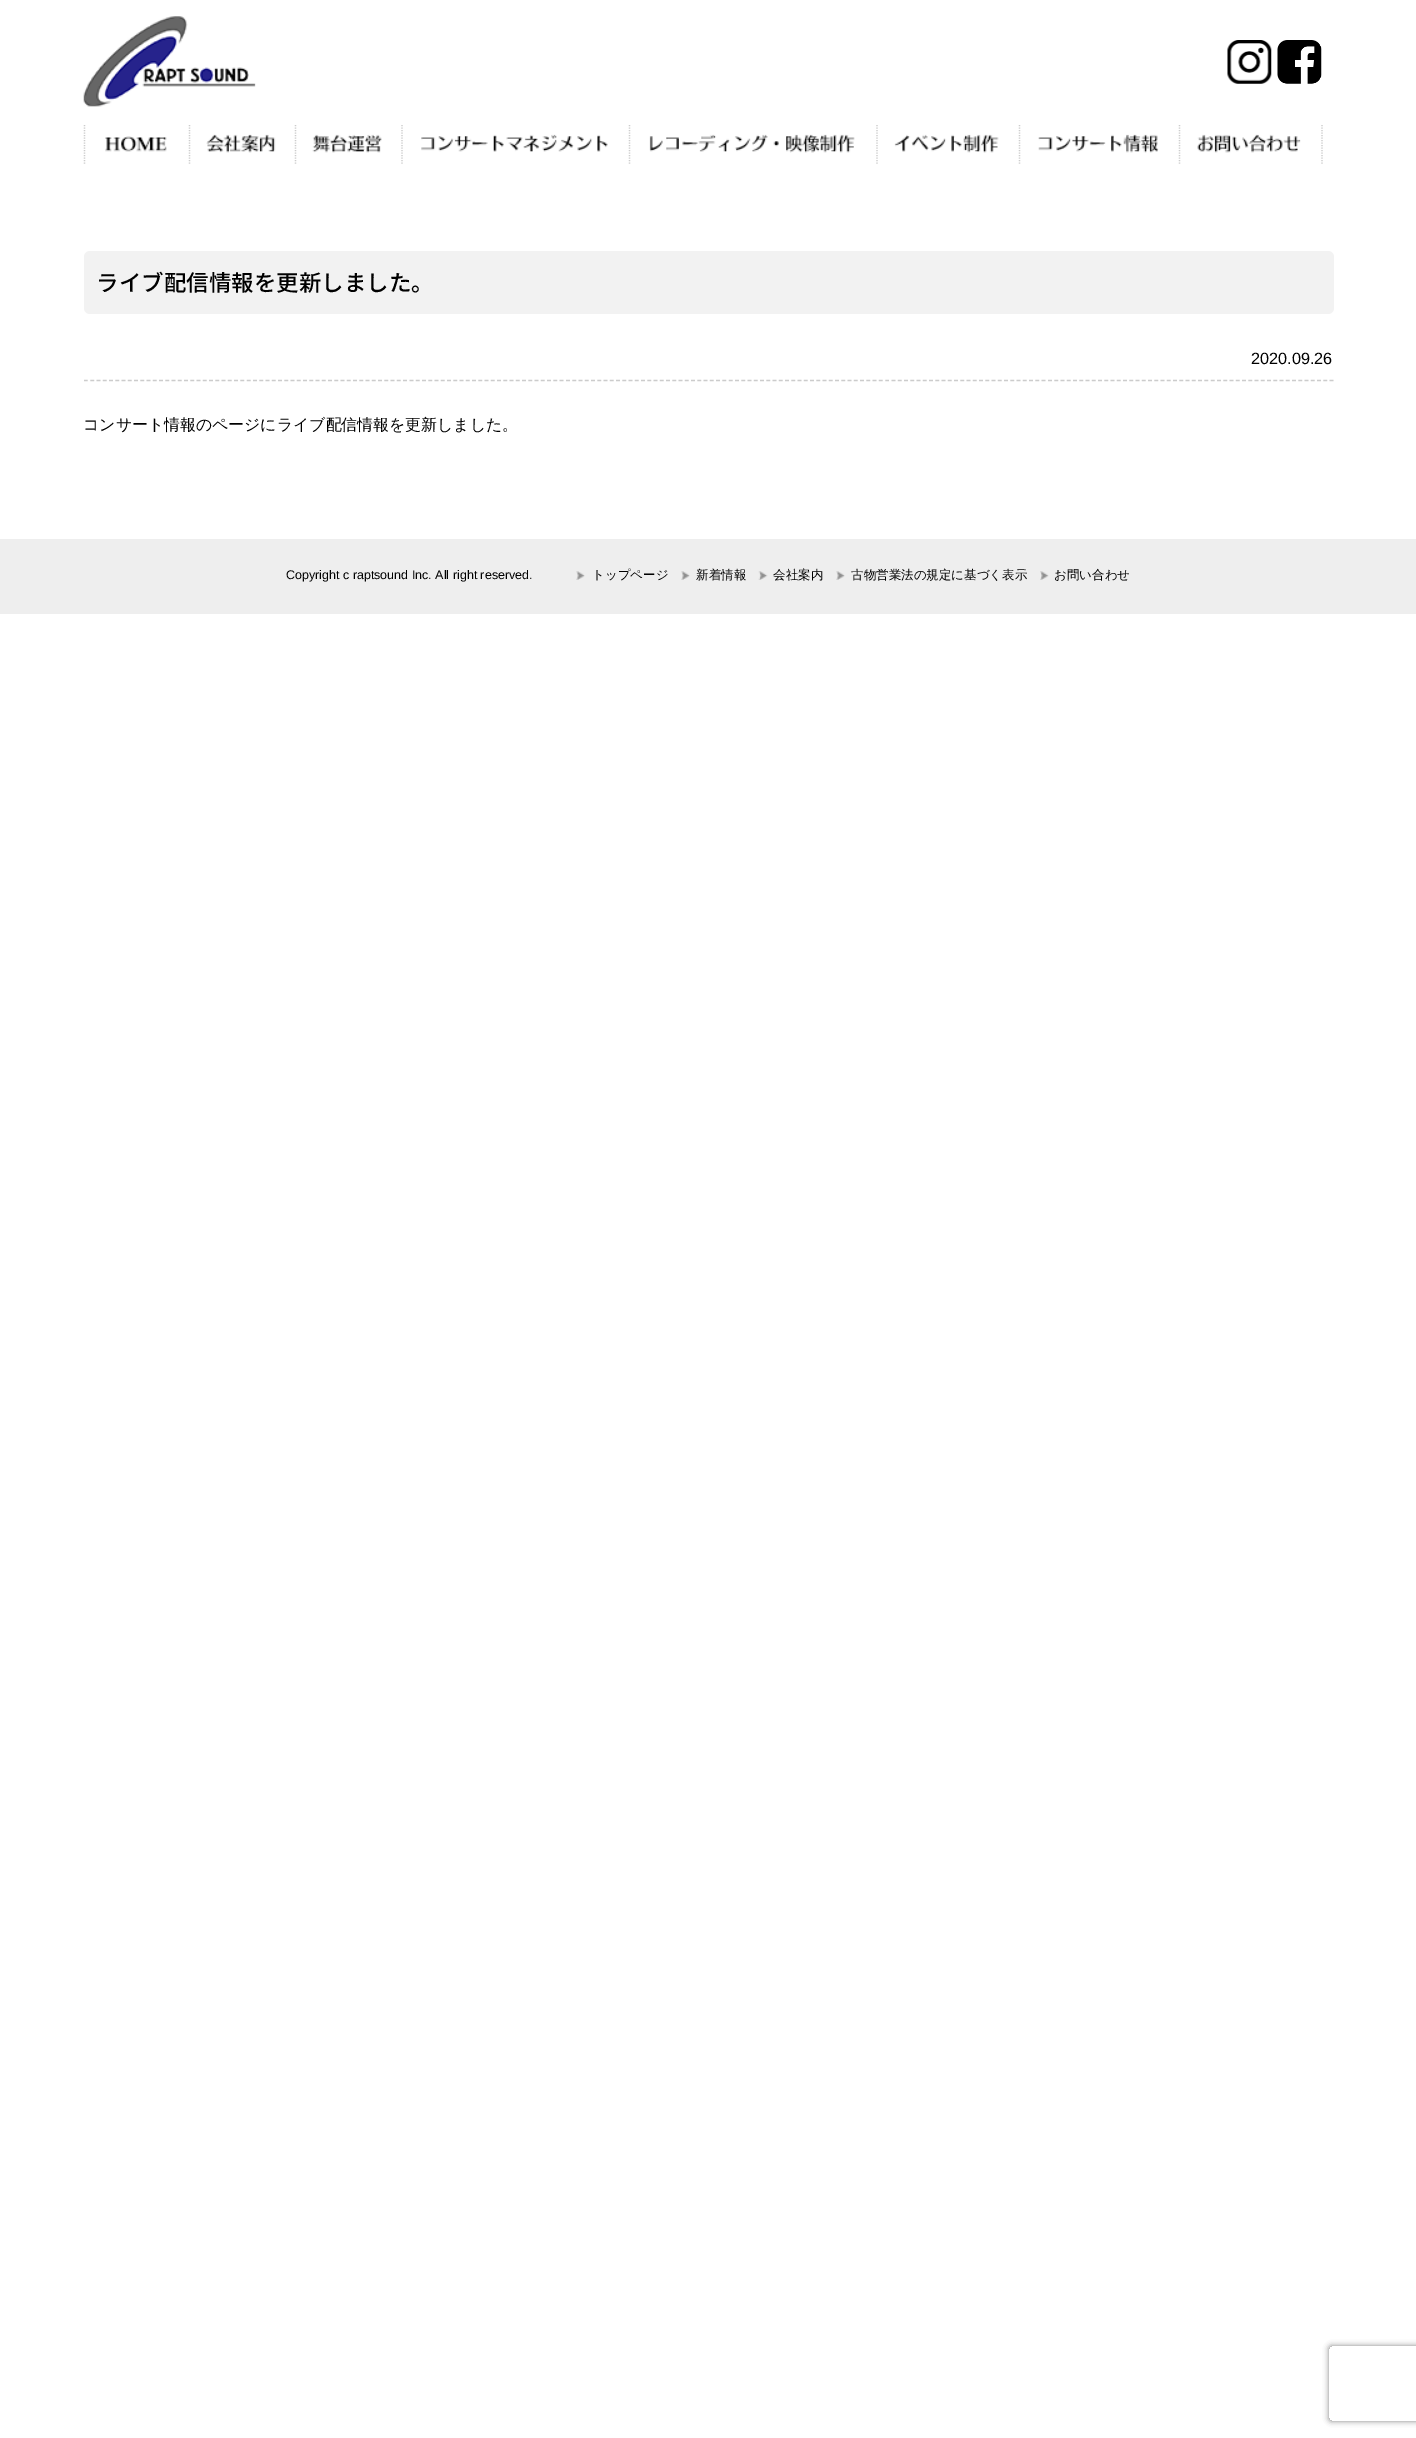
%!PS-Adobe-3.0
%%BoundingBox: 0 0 1416 2438
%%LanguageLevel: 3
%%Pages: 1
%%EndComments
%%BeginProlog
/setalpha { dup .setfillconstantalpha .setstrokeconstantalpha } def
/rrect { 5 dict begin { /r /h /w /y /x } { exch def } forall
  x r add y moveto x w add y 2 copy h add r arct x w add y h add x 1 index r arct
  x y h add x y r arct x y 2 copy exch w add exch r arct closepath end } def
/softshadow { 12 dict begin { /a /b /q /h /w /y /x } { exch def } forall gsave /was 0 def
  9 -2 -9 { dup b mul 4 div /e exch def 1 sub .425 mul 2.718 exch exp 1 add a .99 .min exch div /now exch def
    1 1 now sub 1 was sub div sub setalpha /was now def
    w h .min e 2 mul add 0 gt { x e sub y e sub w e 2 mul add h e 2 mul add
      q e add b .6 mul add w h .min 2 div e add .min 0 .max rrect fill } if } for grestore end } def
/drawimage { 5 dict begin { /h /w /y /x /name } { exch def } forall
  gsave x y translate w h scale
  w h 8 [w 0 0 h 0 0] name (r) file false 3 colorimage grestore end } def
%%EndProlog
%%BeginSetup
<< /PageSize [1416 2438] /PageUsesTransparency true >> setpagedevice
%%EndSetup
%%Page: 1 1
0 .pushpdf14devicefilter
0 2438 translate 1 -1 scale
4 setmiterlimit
1 setgray
0 0 1416 2438 rectfill
(images/1.raw) 83 16 173 91 drawimage
(images/2.raw) 1227 40 45 44 drawimage
(images/3.raw) 1277 40 45 44 drawimage
0.8 setgray
1.2 setlinewidth
[1.25 1.25] 0 setdash
newpath 84.5 125 moveto 84.5 165 lineto stroke
(images/4.raw) 105 136 62 16 drawimage
newpath 189.5 125 moveto 189.5 165 lineto stroke
(images/5.raw) 206 134 70 19 drawimage
newpath 295.5 125 moveto 295.5 165 lineto stroke
(images/6.raw) 312 134 70 19 drawimage
newpath 402 125 moveto 402 165 lineto stroke
(images/7.raw) 421 134 187 18 drawimage
newpath 629.5 125 moveto 629.5 165 lineto stroke
(images/8.raw) 649 134 206 19 drawimage
newpath 877 125 moveto 877 165 lineto stroke
(images/9.raw) 894 134 105 19 drawimage
newpath 1019.5 125 moveto 1019.5 165 lineto stroke
(images/10.raw) 1038 134 121 19 drawimage
newpath 1322 125 moveto 1322 165 lineto stroke
newpath 1179.5 125 moveto 1179.5 165 lineto stroke
(images/11.raw) 1197 134 104 19 drawimage
0.949 setgray
84 251 1250 63 6 rrect fill
0.8 setgray
[3.75 2.51] 0 setdash
newpath 84 380.5 moveto 1334 380.5 lineto stroke
0.933 setgray
0 539 1416 75 rectfill
(images/12.raw) 576 571 9 9 drawimage
(images/12.raw) 681 571 9 9 drawimage
(images/13.raw) 758 571 10 9 drawimage
(images/12.raw) 836 571 9 9 drawimage
(images/14.raw) 1040 571 9 9 drawimage
gsave
newpath 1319 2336 moveto 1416 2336 lineto 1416 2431 lineto 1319 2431 lineto closepath 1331.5 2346 moveto 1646.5 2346 lineto 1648 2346 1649 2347 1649 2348.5 curveto 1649 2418.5 lineto 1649 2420 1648 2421 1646.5 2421 curveto 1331.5 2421 lineto 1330 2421 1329 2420 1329 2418.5 curveto 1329 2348.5 lineto 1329 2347 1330 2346 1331.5 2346 curveto closepath eoclip newpath
0.502 setgray
1329 2346 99 75 2.5 3 1 softshadow
grestore
/NotoSansJP-Medium [22.5 0 0 -22.5 0 0] selectfont
0 setgray
96 291 moveto (ライブ配信情報を更新しました。) show
/LiberationSans-Regular [16.25 0 0 -16.25 0 0] selectfont
1251 364 moveto (2020.09.26) show
/WenQuanYiZenHei-Medium [15.9 0 0 -15.9 0 0] selectfont
83 430 moveto (コンサート情報のページにライブ配信情報を更新しました。) show
/LiberationSans-Regular [12.5 0 0 -12.5 0 0] selectfont
286 579 moveto (Copyright c raptsound Inc. All right reserved.) show
/WenQuanYiZenHei-Medium [12.5 0 0 -12.5 0 0] selectfont
592 579 moveto (トップページ) show
696 579 moveto (新着情報) show
773 579 moveto (会社案内) show
851 579 moveto (古物営業法の規定に基づく表示) show
1054 579 moveto (お問い合わせ) show
.poppdf14devicefilter showpage
%%EOF
